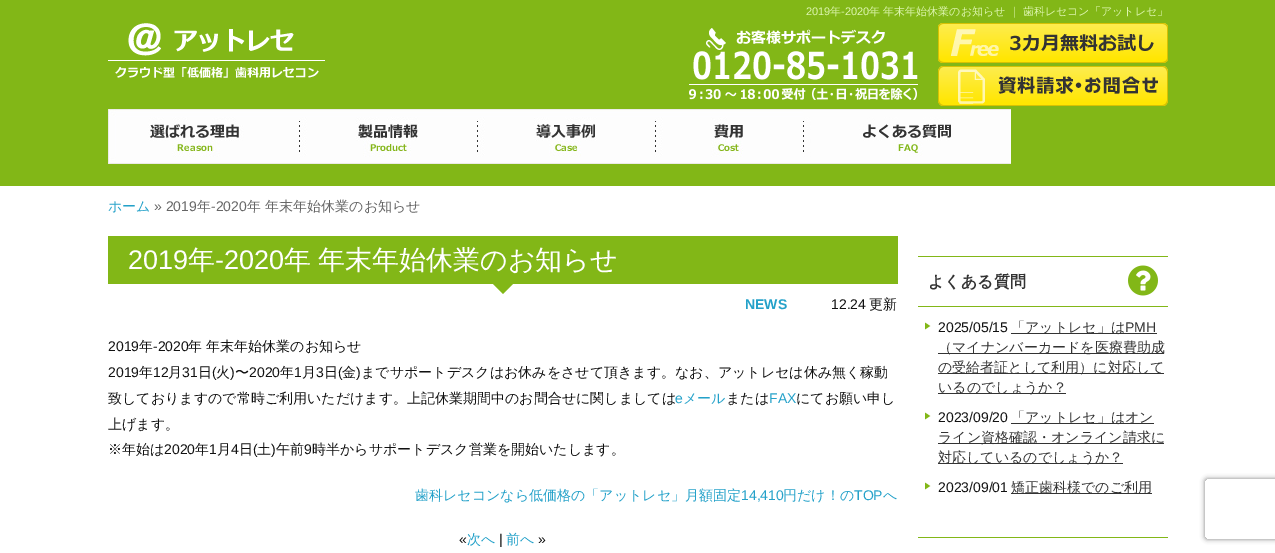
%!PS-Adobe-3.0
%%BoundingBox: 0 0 1275 553
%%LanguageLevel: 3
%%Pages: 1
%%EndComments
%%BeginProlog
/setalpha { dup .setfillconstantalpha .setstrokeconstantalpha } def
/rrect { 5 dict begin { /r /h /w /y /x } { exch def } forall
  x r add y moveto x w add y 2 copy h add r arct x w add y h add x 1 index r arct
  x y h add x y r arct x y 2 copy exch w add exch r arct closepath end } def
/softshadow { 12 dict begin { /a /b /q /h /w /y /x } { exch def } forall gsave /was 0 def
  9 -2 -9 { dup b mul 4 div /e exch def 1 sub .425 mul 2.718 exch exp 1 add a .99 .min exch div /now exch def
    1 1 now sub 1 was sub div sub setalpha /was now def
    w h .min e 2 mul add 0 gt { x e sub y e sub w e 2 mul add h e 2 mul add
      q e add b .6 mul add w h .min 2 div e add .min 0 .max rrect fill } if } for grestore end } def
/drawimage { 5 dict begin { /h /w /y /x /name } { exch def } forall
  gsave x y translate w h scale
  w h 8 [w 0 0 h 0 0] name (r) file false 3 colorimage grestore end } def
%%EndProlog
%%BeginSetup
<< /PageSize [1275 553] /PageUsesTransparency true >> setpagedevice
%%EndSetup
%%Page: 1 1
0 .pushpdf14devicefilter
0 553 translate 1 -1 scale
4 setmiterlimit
1 setgray
0 0 1275 553 rectfill
0.51 0.718 0.09 setrgbcolor
0 0 1275 186 rectfill
(images/1.raw) 108 23 217 55 drawimage
(images/2.raw) 689 28 229 72 drawimage
(images/3.raw) 938 23 230 40 drawimage
(images/4.raw) 938 66 230 40 drawimage
(images/5.raw) 108 109 191 55 drawimage
(images/6.raw) 299 109 178 55 drawimage
(images/7.raw) 477 109 178 55 drawimage
(images/8.raw) 655 109 148 55 drawimage
(images/9.raw) 803 109 208 55 drawimage
108 236 790 48 rectfill
newpath 493 284 moveto 513 284 lineto 503 294 lineto closepath fill
918 256 250 1 rectfill
918 306 250 1 rectfill
(images/10.raw) 1128 265 30 31 drawimage
(images/11.raw) 925 322 6 8 drawimage
0.2 setgray
1011 333 146 1 rectfill
938 353 226 1 rectfill
938 373 226 1 rectfill
938 393 128 1 rectfill
(images/11.raw) 925 412 6 8 drawimage
1011 423 143 1 rectfill
938 443 226 1 rectfill
938 463 185 1 rectfill
(images/11.raw) 925 482 6 8 drawimage
1011 493 141 1 rectfill
0.51 0.718 0.09 setrgbcolor
918 537 250 1 rectfill
gsave
newpath 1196 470 moveto 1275 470 lineto 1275 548 lineto 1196 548 lineto closepath 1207 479 moveto 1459 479 lineto 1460 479 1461 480 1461 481 curveto 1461 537 lineto 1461 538 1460 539 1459 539 curveto 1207 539 lineto 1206 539 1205 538 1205 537 curveto 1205 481 lineto 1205 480 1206 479 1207 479 curveto closepath eoclip newpath
0.502 setgray
1205 479 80 60 2 2.5 1 softshadow
grestore
/LiberationSans-Regular [11 0 0 -11 0 0] selectfont
0.867 0.961 0.686 setrgbcolor
806 15 moveto (2019) show
/WenQuanYiZenHei-Medium [11 0 0 -11 0 0] selectfont
830 15 moveto (年) show
/LiberationSans-Regular [11 0 0 -11 0 0] selectfont
841 15 moveto (-2020) show
/WenQuanYiZenHei-Medium [11 0 0 -11 0 0] selectfont
869 15 moveto (年 年末年始休業のお知らせ ｜ 歯科レセコン「アットレセ」) show
/WenQuanYiZenHei-Medium [14 0 0 -14 0 0] selectfont
0.141 0.631 0.788 setrgbcolor
108 211 moveto (ホーム) show
/LiberationSans-Regular [14 0 0 -14 0 0] selectfont
0.4 setgray
154 211 moveto (» 2019) show
/WenQuanYiZenHei-Medium [14 0 0 -14 0 0] selectfont
197 211 moveto (年) show
/LiberationSans-Regular [14 0 0 -14 0 0] selectfont
211 211 moveto (-2020) show
/WenQuanYiZenHei-Medium [14 0 0 -14 0 0] selectfont
247 211 moveto (年 年末年始休業のお知らせ) show
/LiberationSans-Regular [27 0 0 -27 0 0] selectfont
1 setgray
128 269 moveto (2019) show
/WenQuanYiZenHei-Medium [27 0 0 -27 0 0] selectfont
188 269 moveto (年) show
/LiberationSans-Regular [27 0 0 -27 0 0] selectfont
215 269 moveto (-2020) show
/WenQuanYiZenHei-Medium [27 0 0 -27 0 0] selectfont
284 269 moveto -1 0 32 (年 年末年始休業のお知らせ) widthshow
/LiberationSans-Bold [14 0 0 -14 0 0] selectfont
0.141 0.631 0.788 setrgbcolor
745 309 moveto (NEWS) show
/LiberationSans-Regular [14 0 0 -14 0 0] selectfont
0.067 setgray
831 309 moveto (12.24) show
/WenQuanYiZenHei-Medium [14 0 0 -14 0 0] selectfont
869 309 moveto (更新) show
/LiberationSans-Regular [14 0 0 -14 0 0] selectfont
108 351 moveto (2019) show
/WenQuanYiZenHei-Medium [14 0 0 -14 0 0] selectfont
139 351 moveto (年) show
/LiberationSans-Regular [14 0 0 -14 0 0] selectfont
153 351 moveto (-2020) show
/WenQuanYiZenHei-Medium [14 0 0 -14 0 0] selectfont
188 351 moveto (年 年末年始休業のお知らせ) show
/LiberationSans-Regular [14 0 0 -14 0 0] selectfont
108 377 moveto (2019) show
/WenQuanYiZenHei-Medium [14 0 0 -14 0 0] selectfont
139 377 moveto (年) show
/LiberationSans-Regular [14 0 0 -14 0 0] selectfont
153 377 moveto (12) show
/WenQuanYiZenHei-Medium [14 0 0 -14 0 0] selectfont
168 377 moveto (月) show
/LiberationSans-Regular [14 0 0 -14 0 0] selectfont
182 377 moveto (31) show
/WenQuanYiZenHei-Medium [14 0 0 -14 0 0] selectfont
198 377 moveto (日) show
/LiberationSans-Regular [14 0 0 -14 0 0] selectfont
212 377 moveto (\() show
/WenQuanYiZenHei-Medium [14 0 0 -14 0 0] selectfont
216 377 moveto (火) show
/LiberationSans-Regular [14 0 0 -14 0 0] selectfont
230 377 moveto (\)) show
/WenQuanYiZenHei-Medium [14 0 0 -14 0 0] selectfont
235 377 moveto (〜) show
/LiberationSans-Regular [14 0 0 -14 0 0] selectfont
249 377 moveto (2020) show
/WenQuanYiZenHei-Medium [14 0 0 -14 0 0] selectfont
280 377 moveto (年) show
/LiberationSans-Regular [14 0 0 -14 0 0] selectfont
294 377 moveto (1) show
/WenQuanYiZenHei-Medium [14 0 0 -14 0 0] selectfont
302 377 moveto (月) show
/LiberationSans-Regular [14 0 0 -14 0 0] selectfont
316 377 moveto (3) show
/WenQuanYiZenHei-Medium [14 0 0 -14 0 0] selectfont
324 377 moveto (日) show
/LiberationSans-Regular [14 0 0 -14 0 0] selectfont
338 377 moveto (\() show
/WenQuanYiZenHei-Medium [14 0 0 -14 0 0] selectfont
342 377 moveto (金) show
/LiberationSans-Regular [14 0 0 -14 0 0] selectfont
356 377 moveto (\)) show
/WenQuanYiZenHei-Medium [14 0 0 -14 0 0] selectfont
361 377 moveto (までサポートデスクはお休みをさせて頂きます。なお、アットレセは休み無く稼動) show
108 403 moveto (致しておりますので常時ご利用いただけます。上記休業期間中のお問合せに関しましては) show
/LiberationSans-Regular [14 0 0 -14 0 0] selectfont
0.141 0.631 0.788 setrgbcolor
675 403 moveto (e) show
/WenQuanYiZenHei-Medium [14 0 0 -14 0 0] selectfont
683 403 moveto (メール) show
0.067 setgray
726 403 moveto (または) show
/LiberationSans-Regular [14 0 0 -14 0 0] selectfont
0.141 0.631 0.788 setrgbcolor
769 403 moveto (FAX) show
/WenQuanYiZenHei-Medium [14 0 0 -14 0 0] selectfont
0.067 setgray
796 403 moveto (にてお願い申し) show
108 429 moveto (上げます。) show
108 454 moveto (※年始は) show
/LiberationSans-Regular [14 0 0 -14 0 0] selectfont
164 454 moveto (2020) show
/WenQuanYiZenHei-Medium [14 0 0 -14 0 0] selectfont
195 454 moveto (年) show
/LiberationSans-Regular [14 0 0 -14 0 0] selectfont
209 454 moveto (1) show
/WenQuanYiZenHei-Medium [14 0 0 -14 0 0] selectfont
217 454 moveto (月) show
/LiberationSans-Regular [14 0 0 -14 0 0] selectfont
231 454 moveto (4) show
/WenQuanYiZenHei-Medium [14 0 0 -14 0 0] selectfont
239 454 moveto (日) show
/LiberationSans-Regular [14 0 0 -14 0 0] selectfont
253 454 moveto (\() show
/WenQuanYiZenHei-Medium [14 0 0 -14 0 0] selectfont
257 454 moveto (土) show
/LiberationSans-Regular [14 0 0 -14 0 0] selectfont
271 454 moveto (\)) show
/WenQuanYiZenHei-Medium [14 0 0 -14 0 0] selectfont
276 454 moveto (午前) show
/LiberationSans-Regular [14 0 0 -14 0 0] selectfont
304 454 moveto (9) show
/WenQuanYiZenHei-Medium [14 0 0 -14 0 0] selectfont
312 454 moveto (時半からサポートデスク営業を開始いたします。) show
0.141 0.631 0.788 setrgbcolor
415 500 moveto (歯科レセコンなら低価格の「アットレセ」月額固定) show
/LiberationSans-Regular [14 0 0 -14 0 0] selectfont
741 500 moveto (14,410) show
/WenQuanYiZenHei-Medium [14 0 0 -14 0 0] selectfont
783 500 moveto (円だけ！の) show
/LiberationSans-Regular [14 0 0 -14 0 0] selectfont
854 500 moveto (TOP) show
/WenQuanYiZenHei-Medium [14 0 0 -14 0 0] selectfont
883 500 moveto (へ) show
/LiberationSans-Regular [14 0 0 -14 0 0] selectfont
0.067 setgray
459 544 moveto («) show
/WenQuanYiZenHei-Medium [14 0 0 -14 0 0] selectfont
0.141 0.631 0.788 setrgbcolor
467 544 moveto (次へ) show
/LiberationSans-Regular [14 0 0 -14 0 0] selectfont
0.067 setgray
499 544 moveto (|) show
/WenQuanYiZenHei-Medium [14 0 0 -14 0 0] selectfont
0.141 0.631 0.788 setrgbcolor
506 544 moveto (前へ) show
/LiberationSans-Regular [14 0 0 -14 0 0] selectfont
0.067 setgray
538 544 moveto (») show
/WenQuanYiZenHei-Bold [16 0 0 -16 0 0] selectfont
0.2 setgray
928 287 moveto (よくある質問) show
/LiberationSans-Regular [14 0 0 -14 0 0] selectfont
0.067 setgray
938 332 moveto (2025/05/15) show
/WenQuanYiZenHei-Medium [14 0 0 -14 0 0] selectfont
0.2 setgray
1011 332 moveto (「アットレセ」は) show
/LiberationSans-Regular [14 0 0 -14 0 0] selectfont
1125 332 moveto (PMH) show
/WenQuanYiZenHei-Medium [14 0 0 -14 0 0] selectfont
938 352 moveto (（マイナンバーカードを医療費助成) show
938 372 moveto (の受給者証として利用）に対応して) show
938 392 moveto (いるのでしょうか？) show
/LiberationSans-Regular [14 0 0 -14 0 0] selectfont
0.067 setgray
938 422 moveto (2023/09/20) show
/WenQuanYiZenHei-Medium [14 0 0 -14 0 0] selectfont
0.2 setgray
1011 422 moveto (「アットレセ」はオン) show
938 442 moveto (ライン資格確認・オンライン請求に) show
938 462 moveto (対応しているのでしょうか？) show
/LiberationSans-Regular [14 0 0 -14 0 0] selectfont
0.067 setgray
938 492 moveto (2023/09/01) show
/WenQuanYiZenHei-Medium [14 0 0 -14 0 0] selectfont
0.2 setgray
1011 492 moveto (矯正歯科様でのご利用) show
.poppdf14devicefilter showpage
%%EOF
